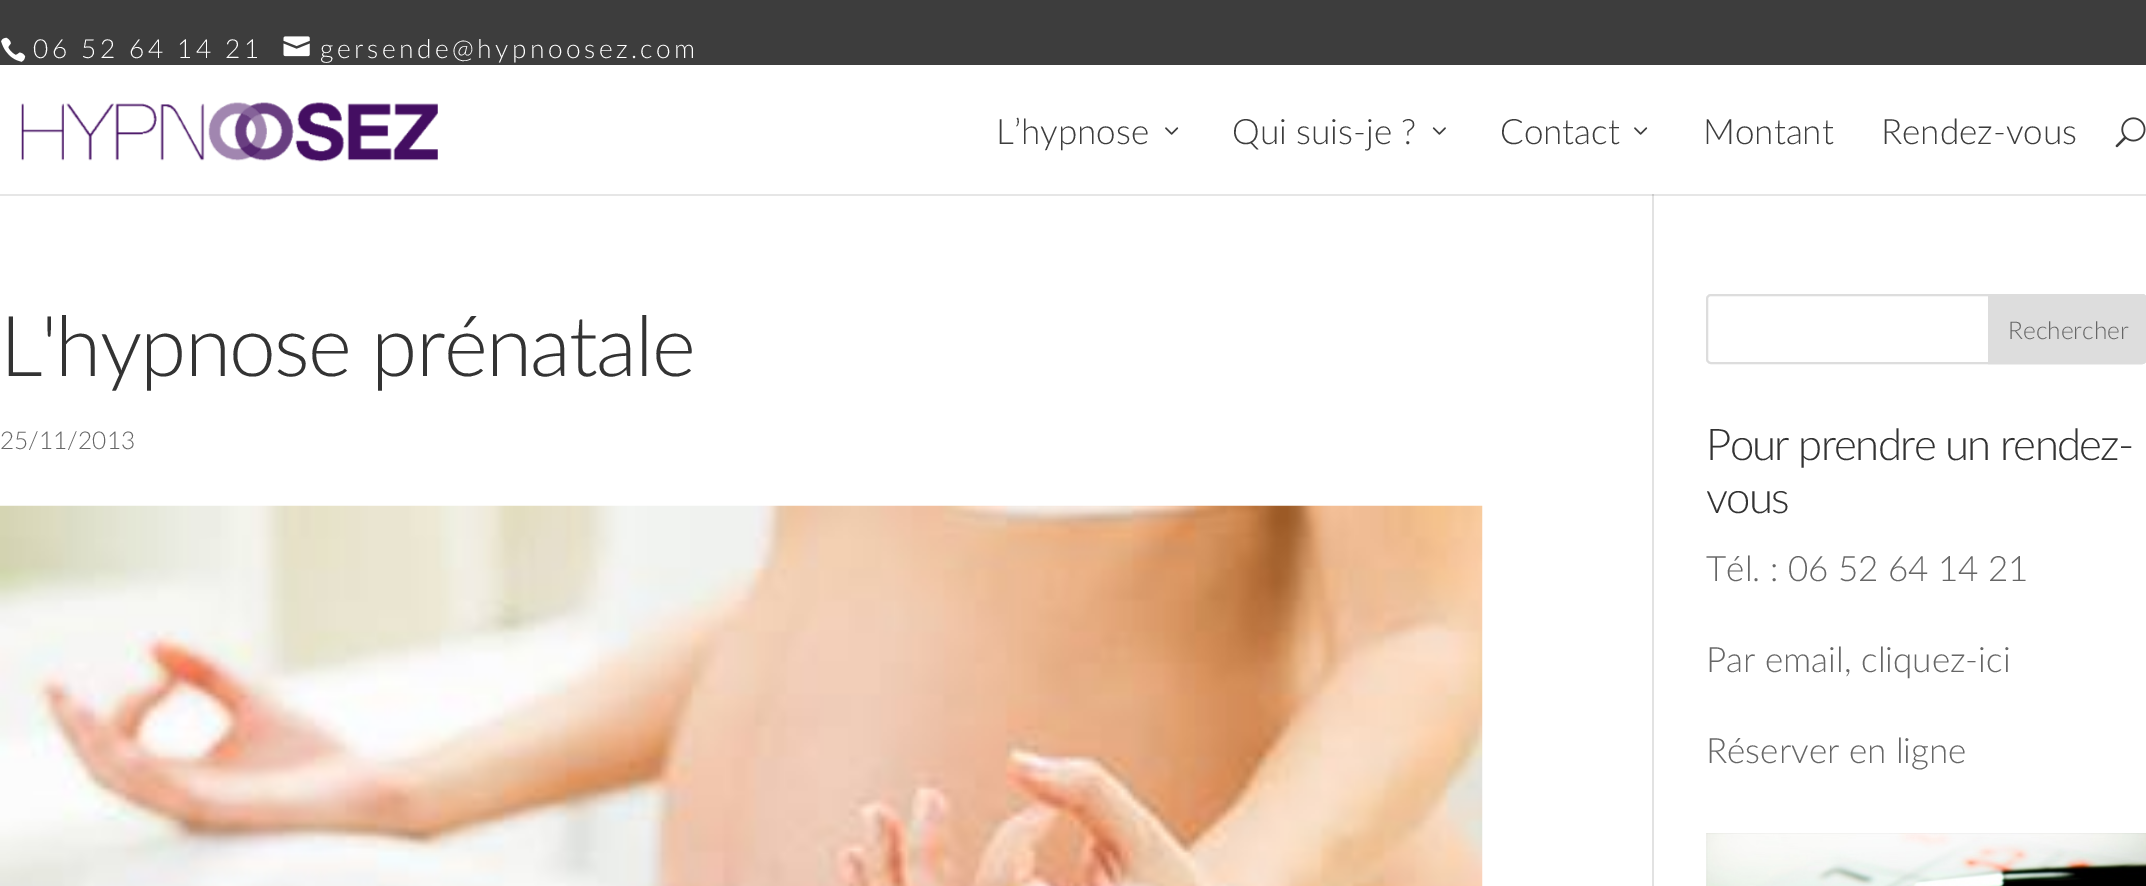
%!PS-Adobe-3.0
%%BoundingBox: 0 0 2146 886
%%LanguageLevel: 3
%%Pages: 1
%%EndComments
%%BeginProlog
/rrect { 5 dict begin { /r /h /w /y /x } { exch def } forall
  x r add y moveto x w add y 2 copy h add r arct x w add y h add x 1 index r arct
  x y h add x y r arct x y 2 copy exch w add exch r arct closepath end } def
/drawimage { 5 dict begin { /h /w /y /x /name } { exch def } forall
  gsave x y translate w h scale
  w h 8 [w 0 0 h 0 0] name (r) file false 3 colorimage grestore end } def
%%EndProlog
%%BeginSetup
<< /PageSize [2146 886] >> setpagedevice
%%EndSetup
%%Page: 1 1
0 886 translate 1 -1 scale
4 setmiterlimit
1 setgray
0 0 2146 886 rectfill
0.902 setgray
0 194 2146 2 rectfill
0.239 setgray
0 0 2146 65 rectfill
(images/1.raw) 1 37 25 25 drawimage
(images/2.raw) 283 36 27 21 drawimage
0.886 setgray
1652 193 2 693 rectfill
1 setgray
1652 193 2 1 rectfill
(images/3.raw) 21 102 417 60 drawimage
(images/4.raw) 1165 127 14 8 drawimage
(images/5.raw) 1432 127 14 8 drawimage
(images/4.raw) 1634 127 14 8 drawimage
(images/6.raw) 2115 117 31 31 drawimage
0.796 setgray
1652 194 2 2 rectfill
(images/7.raw) 0 505 1483 381 drawimage
0.867 setgray
2 setlinewidth
1707 295 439 68 4 rrect stroke
newpath 1989 295 moveto 2142 295 lineto 2144 295 2146 297 2146 299 curveto 2146 359 lineto 2146 361 2144 363 2142 363 curveto 1989 363 lineto closepath gsave fill grestore
stroke
(images/8.raw) 1706 833 440 53 drawimage
/Lato-Light [26.25 0 0 -26.25 0 0] selectfont
1 setgray
33 58 moveto 3.5 0 (06 52 64 14 21) ashow
320 58 moveto 3.5 0 (gersende@hypnoosez.com) ashow
/Lato-Light [35 0 0 -35 0 0] selectfont
0.239 setgray
996 144 moveto (L’hypnose) show
1232 144 moveto (Qui suis-je ?) show
1500 144 moveto (Contact) show
1703 144 moveto (Montant) show
1881 144 moveto (Rendez-vous) show
/Lato-Light [84 0 0 -84 0 0] selectfont
0.2 setgray
0 376 moveto -1.75 0 (L'hypnose prénatale) ashow
/Lato-Light [24.5 0 0 -24.5 0 0] selectfont
0.4 setgray
0 449 moveto (25/11/2013) show
2008 339 moveto (Rechercher) show
/Lato-Light [43.75 0 0 -43.75 0 0] selectfont
0.2 setgray
1706 460 moveto -1.75 0 (Pour prendre un rendez-) ashow
1706 513 moveto -1.75 0 (vous) ashow
/Lato-Light [35 0 0 -35 0 0] selectfont
0.4 setgray
1706 581 moveto (Tél. : 06 52 64 14 21) show
1706 672 moveto (Par email, cliquez-ici) show
1706 763 moveto (Réserver en ligne) show
showpage
%%EOF
